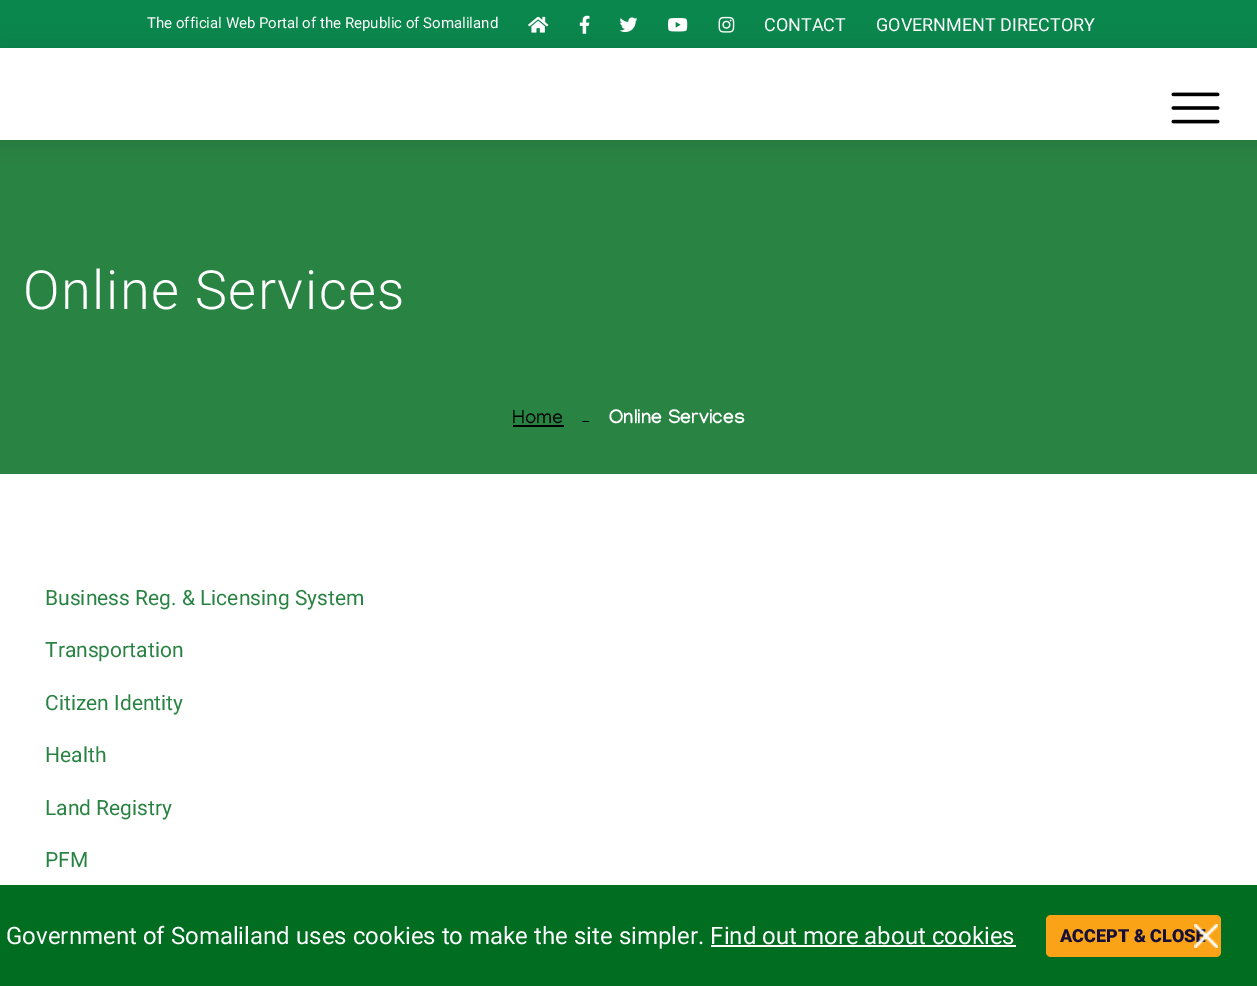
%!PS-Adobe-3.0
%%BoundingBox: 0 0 1257 986
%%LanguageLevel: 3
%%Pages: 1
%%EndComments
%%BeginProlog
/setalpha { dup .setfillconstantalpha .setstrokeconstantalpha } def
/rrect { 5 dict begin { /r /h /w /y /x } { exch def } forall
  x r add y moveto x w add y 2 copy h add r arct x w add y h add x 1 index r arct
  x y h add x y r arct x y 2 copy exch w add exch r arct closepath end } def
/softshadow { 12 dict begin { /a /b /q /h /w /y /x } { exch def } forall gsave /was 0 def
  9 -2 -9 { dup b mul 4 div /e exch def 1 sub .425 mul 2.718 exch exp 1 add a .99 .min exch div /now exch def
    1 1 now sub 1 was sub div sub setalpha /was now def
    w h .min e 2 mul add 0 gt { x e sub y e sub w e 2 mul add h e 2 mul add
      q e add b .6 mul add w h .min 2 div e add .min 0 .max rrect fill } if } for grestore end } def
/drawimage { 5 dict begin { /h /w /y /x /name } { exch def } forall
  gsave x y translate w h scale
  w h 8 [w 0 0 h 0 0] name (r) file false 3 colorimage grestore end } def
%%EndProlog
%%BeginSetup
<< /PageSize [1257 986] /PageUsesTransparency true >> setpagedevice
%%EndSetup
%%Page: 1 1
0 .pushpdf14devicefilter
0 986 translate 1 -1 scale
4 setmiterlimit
1 setgray
0 0 1257 986 rectfill
0.039 0.529 0.298 setrgbcolor
0 0 1257 48 rectfill
(images/2.raw) 528 16 21 17 drawimage
(images/3.raw) 579 15 11 19 drawimage
(images/4.raw) 619 17 19 16 drawimage
(images/5.raw) 668 18 20 14 drawimage
(images/6.raw) 718 16 17 17 drawimage
0.161 0.514 0.259 setrgbcolor
0 140 1257 334 rectfill
0 setgray
0 48 1257 92 0 11 0.1 softshadow
1 setgray
0 48 1257 92 rectfill
(images/1.raw) 1171 92 49 32 drawimage
0 setgray
513 425 51 2 rectfill
0.004 0.427 0.129 setrgbcolor
0 885 1257 101 rectfill
1 setgray
711 945 305 2 rectfill
0.98 0.639 0.09 setrgbcolor
1046 915 175 42 5 rrect fill
/Roboto-Regular [15 0 0 -15 0 0] selectfont
1 setgray
147 28 moveto (The official Web Portal of the Republic of Somaliland) show
/Roboto-Regular [18 0 0 -18 0 0] selectfont
764 31 moveto (CONTACT) show
876 31 moveto (GOVERNMENT DIRECTORY) show
/Roboto-Light [54 0 0 -54 0 0] selectfont
23 309 moveto 1.5 0 (Online Services) ashow
/Manjari-Regular [19.5 0 0 -19.5 0 0] selectfont
0 setgray
512 423 moveto (Home) show
/Manjari-Regular [15 0 0 -15 0 0] selectfont
582 422 moveto (_) show
/Manjari-Bold [19.5 0 0 -19.5 0 0] selectfont
1 setgray
609 423 moveto (Online Services) show
/Roboto-Regular [21 0 0 -21 0 0] selectfont
0.161 0.514 0.259 setrgbcolor
45 605 moveto (Business Reg. & Licensing System) show
45 657 moveto (Transportation) show
45 710 moveto (Citizen Identity) show
45 762 moveto (Health) show
45 815 moveto (Land Registry) show
45 867 moveto (PFM) show
/Roboto-Regular [24 0 0 -24 0 0] selectfont
1 setgray
6 944 moveto (Government of Somaliland uses cookies to make the site simpler. Find out more about cookies) show
/Roboto-Black [18 0 0 -18 0 0] selectfont
0.086 0.063 0.22 setrgbcolor
1060 942 moveto (ACCEPT & CLOSE) show
(images/7.raw) 1194 924 24 24 drawimage
.poppdf14devicefilter showpage
%%EOF
